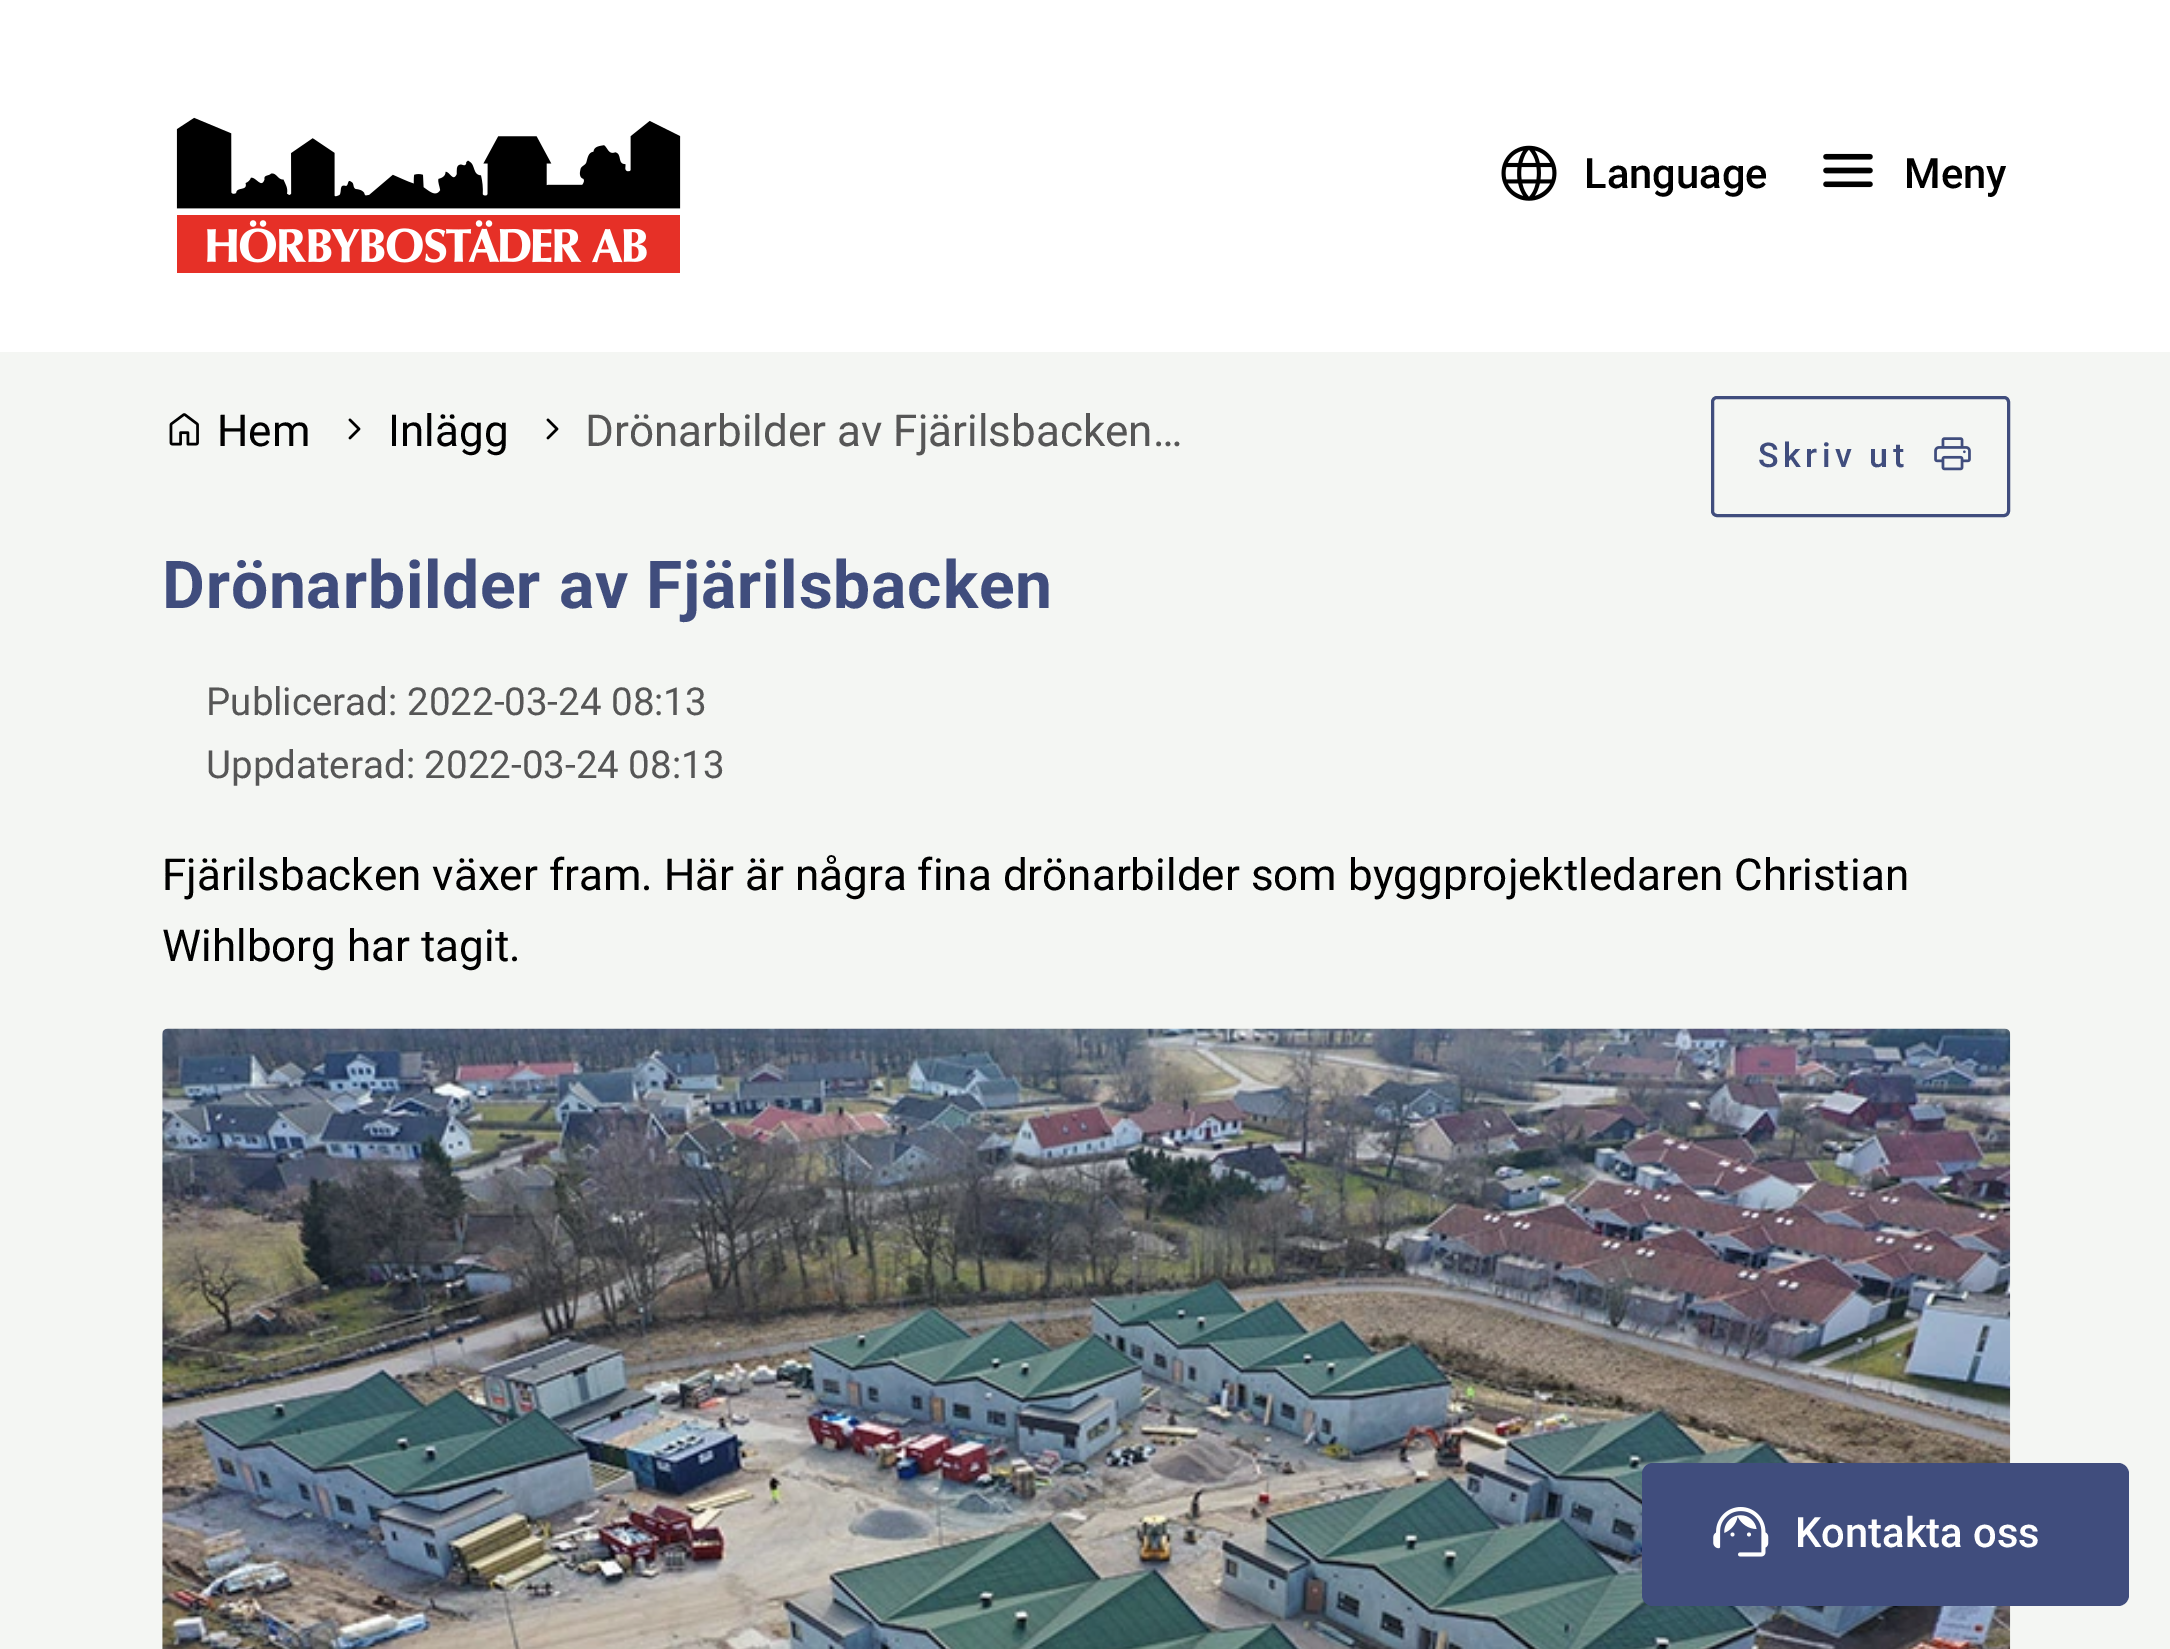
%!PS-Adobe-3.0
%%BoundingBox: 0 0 2170 1649
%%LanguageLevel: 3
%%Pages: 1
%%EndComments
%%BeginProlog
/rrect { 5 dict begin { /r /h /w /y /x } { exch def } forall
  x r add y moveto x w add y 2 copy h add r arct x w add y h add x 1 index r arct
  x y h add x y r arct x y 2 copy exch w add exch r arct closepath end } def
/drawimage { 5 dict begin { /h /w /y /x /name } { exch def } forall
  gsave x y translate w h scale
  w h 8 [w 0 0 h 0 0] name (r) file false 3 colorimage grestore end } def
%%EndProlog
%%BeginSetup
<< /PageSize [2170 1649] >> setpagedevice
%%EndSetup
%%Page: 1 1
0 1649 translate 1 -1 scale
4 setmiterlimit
0.957 0.965 0.953 setrgbcolor
0 0 2170 1649 rectfill
1 setgray
0 0 2170 352 rectfill
(images/1.raw) 176 117 505 156 drawimage
(images/2.raw) 1501 145 56 56 drawimage
(images/3.raw) 1823 153 50 35 drawimage
(images/4.raw) 169 413 30 33 drawimage
(images/5.raw) 348 418 13 22 drawimage
(images/5.raw) 546 418 13 22 drawimage
0.251 0.302 0.49 setrgbcolor
3 setlinewidth
1712.5 397.5 296 118 4.5 rrect stroke
(images/6.raw) 1934 437 37 34 drawimage
(images/7.raw) 162 1028 1849 621 drawimage
1642 1463 487 143 11 rrect fill
(images/8.raw) 1713 1507 56 50 drawimage
/Roboto-Medium [41.75 0 0 -41.75 0 0] selectfont
0 setgray
1584 188 moveto (Language) show
1904 188 moveto (Meny) show
/Roboto-Regular [44 0 0 -44 0 0] selectfont
217 446 moveto (Hem) show
388 446 moveto (Inlägg) show
0.337 setgray
585 446 moveto (Drönarbilder av Fjärilsbacken…) show
/Roboto-Medium [34 0 0 -34 0 0] selectfont
0.251 0.302 0.49 setrgbcolor
1758 467 moveto 4.5 0 (Skriv ut) ashow
/Roboto-Bold [66 0 0 -66 0 0] selectfont
162 608 moveto 0.8 0 (Drönarbilder av Fjärilsbacken) ashow
/Roboto-Regular [38.5 0 0 -38.5 0 0] selectfont
0.337 setgray
206 715 moveto (Publicerad: 2022-03-24 08:13) show
206 778 moveto (Uppdaterad: 2022-03-24 08:13) show
/Roboto-Regular [44 0 0 -44 0 0] selectfont
0 setgray
162 890 moveto (Fjärilsbacken växer fram. Här är några fina drönarbilder som byggprojektledaren Christian) show
162 961 moveto (Wihlborg har tagit.) show
/Roboto-Medium [41.75 0 0 -41.75 0 0] selectfont
0.996 setgray
1795 1547 moveto (Kontakta oss) show
showpage
%%EOF
